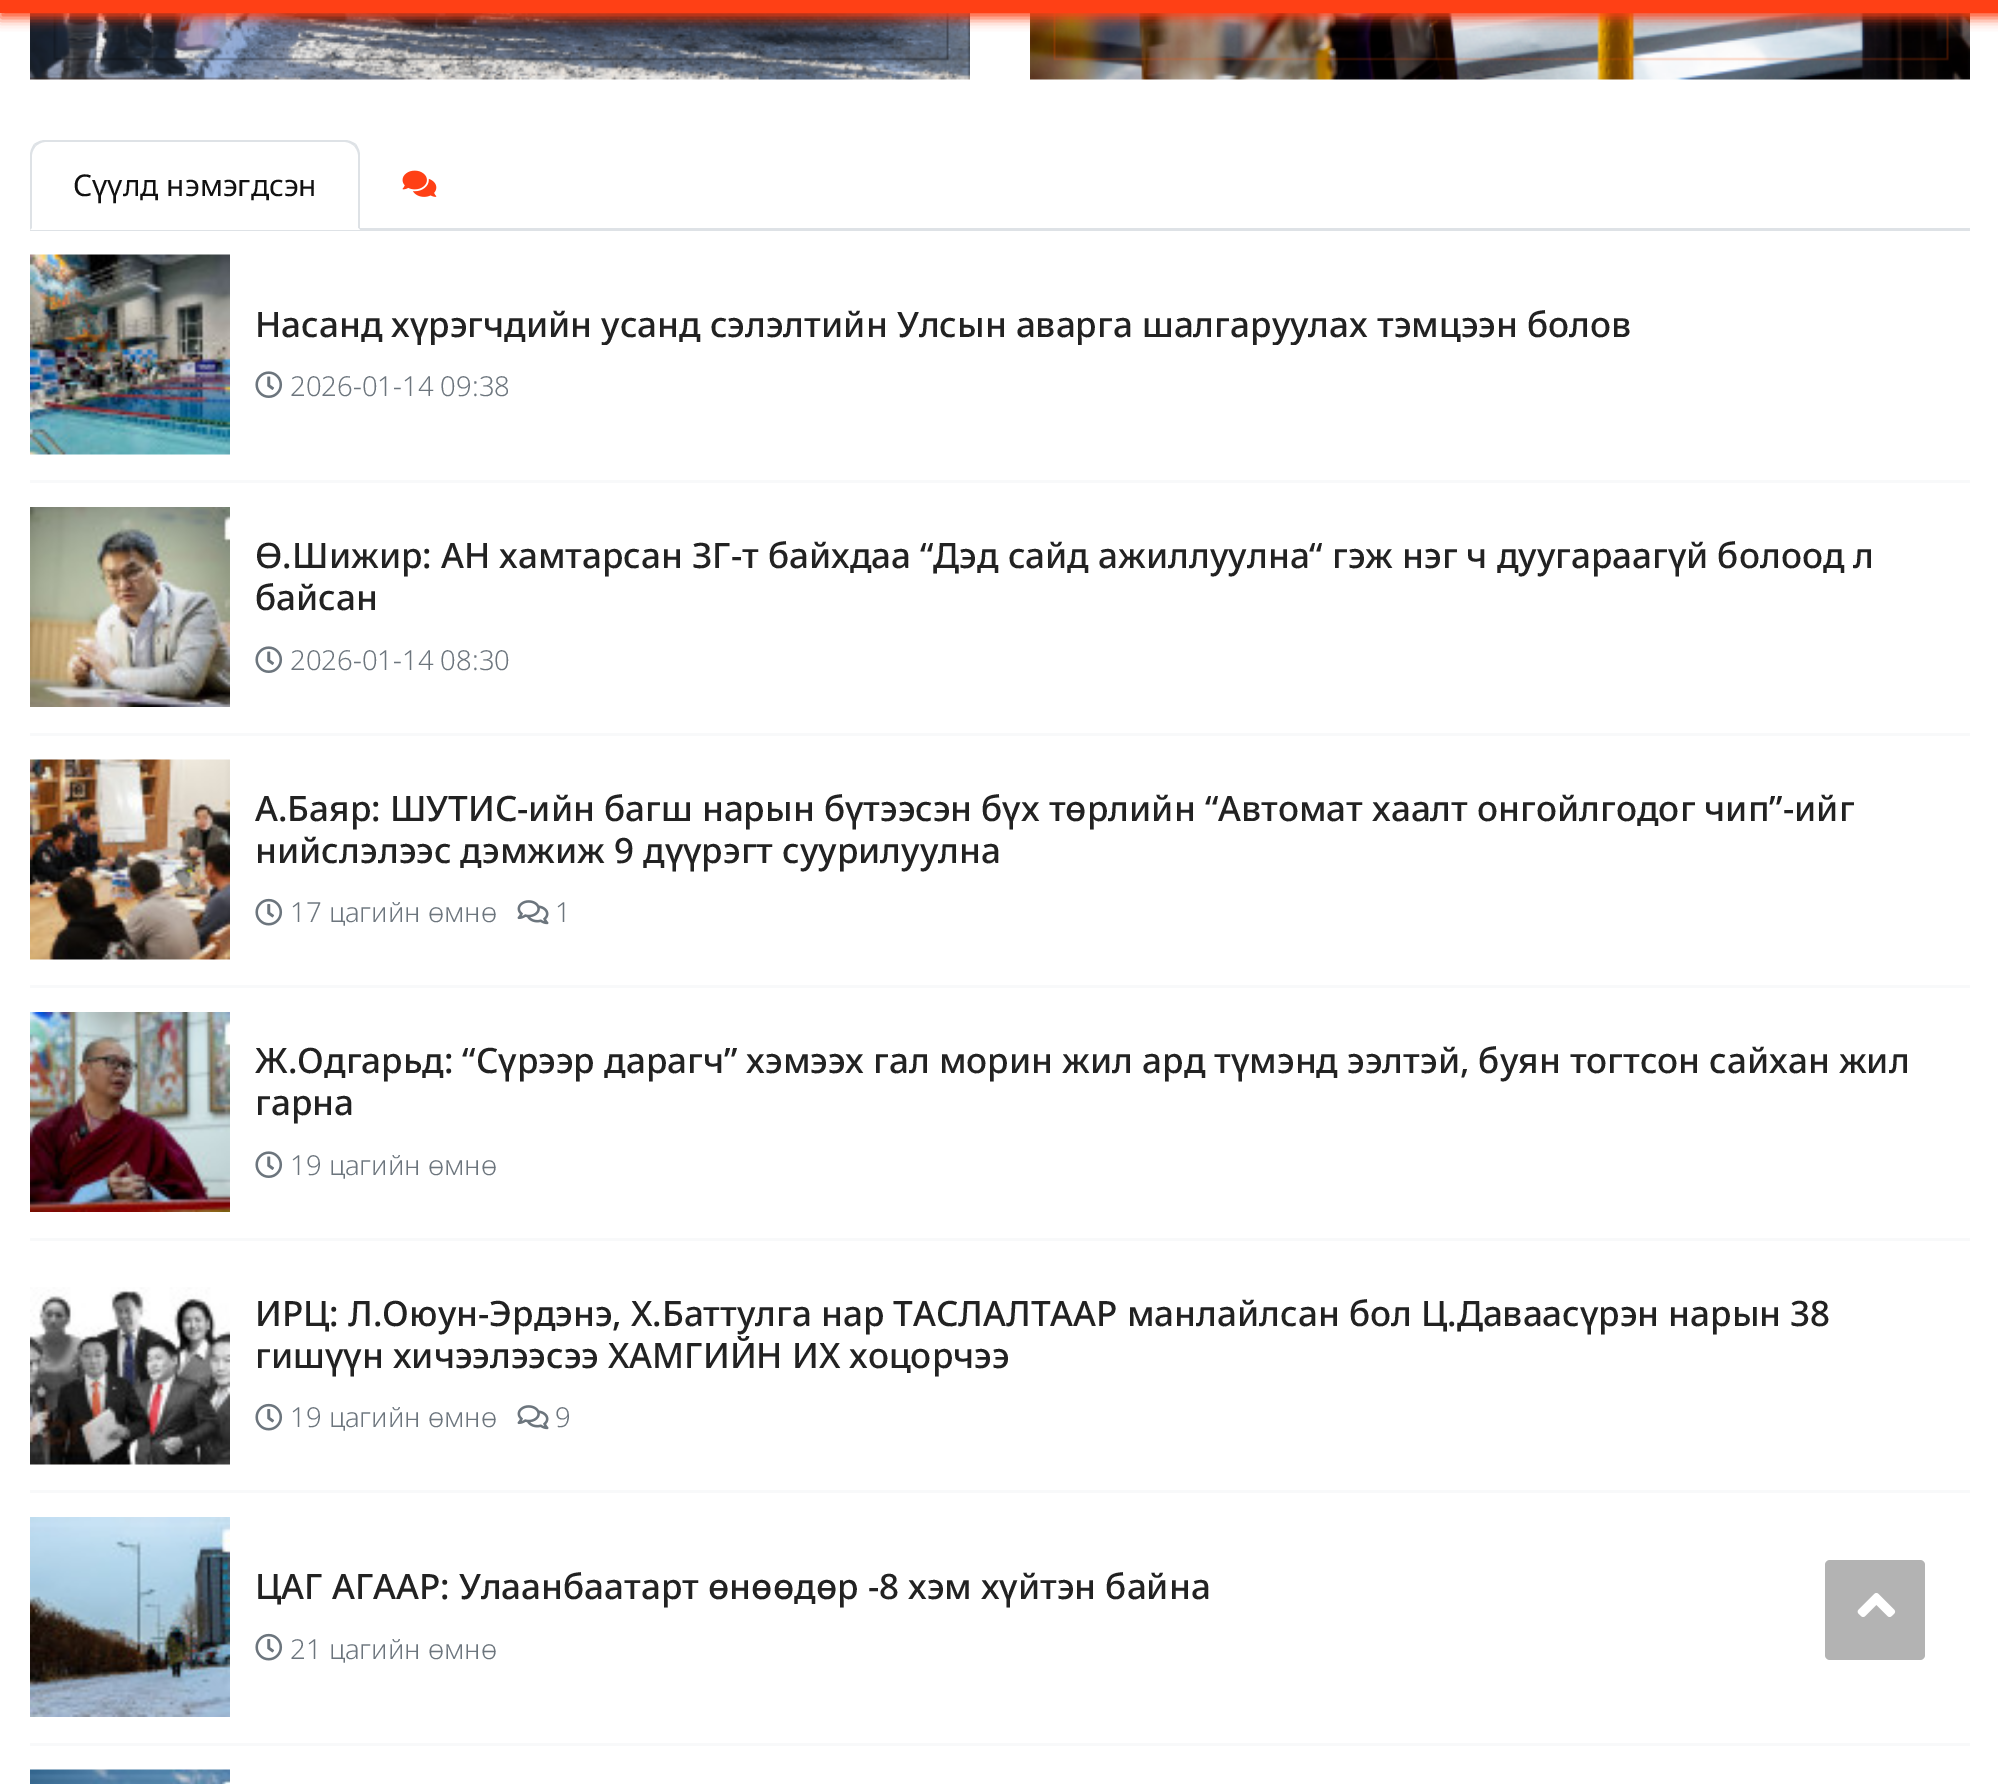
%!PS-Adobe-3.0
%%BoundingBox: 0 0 1998 1784
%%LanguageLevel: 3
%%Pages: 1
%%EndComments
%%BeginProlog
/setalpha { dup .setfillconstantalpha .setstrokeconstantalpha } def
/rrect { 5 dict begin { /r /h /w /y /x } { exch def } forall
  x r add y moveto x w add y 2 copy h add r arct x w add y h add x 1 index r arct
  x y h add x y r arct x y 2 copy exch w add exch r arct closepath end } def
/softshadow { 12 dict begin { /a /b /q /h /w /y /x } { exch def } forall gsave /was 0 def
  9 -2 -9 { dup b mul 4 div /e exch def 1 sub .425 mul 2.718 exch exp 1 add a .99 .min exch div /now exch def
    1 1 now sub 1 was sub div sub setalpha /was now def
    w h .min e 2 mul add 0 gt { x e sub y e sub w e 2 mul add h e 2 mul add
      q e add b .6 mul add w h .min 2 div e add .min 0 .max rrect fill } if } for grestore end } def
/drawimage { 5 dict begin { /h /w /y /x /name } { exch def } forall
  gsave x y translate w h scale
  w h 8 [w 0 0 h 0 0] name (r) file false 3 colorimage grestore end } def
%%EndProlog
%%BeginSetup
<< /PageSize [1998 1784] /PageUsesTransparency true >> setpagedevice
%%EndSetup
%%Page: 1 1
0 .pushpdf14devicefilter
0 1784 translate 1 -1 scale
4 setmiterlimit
1 setgray
0 0 1998 1784 rectfill
(images/1.raw) 30 13 940 67 drawimage
(images/2.raw) 1030 13 940 67 drawimage
1 0.251 0.082 setrgbcolor
0 5 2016 13 0 6 1 softshadow
0 0 1998 13 rectfill
0.871 0.886 0.902 setrgbcolor
30 228 1940 3 rectfill
1 setgray
newpath 45 140 moveto 345 140 lineto 353.5 140 360 146.5 360 155 curveto 360 230 lineto 30 230 lineto 30 155 lineto 30 146.5 36.5 140 45 140 curveto closepath fill
0.871 0.886 0.902 setrgbcolor
newpath 45 140 moveto 41 140 37 142 34 144 curveto 36 146 lineto 38 144 42 142 45 142 curveto 345 142 lineto 348 142 352 144 354 146 curveto 356 144 lineto 353 142 349 140 345 140 curveto closepath fill
newpath 360 230 moveto 360 155 lineto 360 151 358 147 356 144 curveto 354 146 lineto 356 148 358 152 358 155 curveto 358 228 lineto closepath fill
1 setgray
newpath 360 230 moveto 358 228 lineto 32 228 lineto 30 230 lineto closepath fill
0.871 0.886 0.902 setrgbcolor
newpath 30 230 moveto 32 228 lineto 32 155 lineto 32 152 34 148 36 146 curveto 34 144 lineto 32 147 30 151 30 155 curveto closepath fill
(images/3.raw) 402 170 35 27 drawimage
0.973 0.976 0.98 setrgbcolor
30 480 1940 3 rectfill
(images/4.raw) 30 254 200 201 drawimage
(images/5.raw) 255 371 28 27 drawimage
30 733 1940 3 rectfill
(images/6.raw) 30 507 200 200 drawimage
(images/5.raw) 255 646 28 27 drawimage
30 985 1940 3 rectfill
(images/7.raw) 30 759 200 201 drawimage
(images/8.raw) 255 898 28 28 drawimage
(images/9.raw) 517 900 32 25 drawimage
30 1238 1940 3 rectfill
(images/10.raw) 30 1012 200 200 drawimage
(images/5.raw) 255 1151 28 27 drawimage
30 1490 1940 3 rectfill
(images/11.raw) 30 1287 200 178 drawimage
(images/8.raw) 255 1403 28 28 drawimage
(images/9.raw) 517 1405 32 25 drawimage
30 1743 1940 3 rectfill
(images/12.raw) 30 1517 200 200 drawimage
(images/8.raw) 255 1633 28 28 drawimage
(images/13.raw) 30 1769 200 15 drawimage
0.702 setgray
1825 1560 100 100 5 rrect fill
(images/14.raw) 1857 1593 39 24 drawimage
/NotoSans-Regular [30 0 0 -30 0 0] selectfont
0.067 setgray
73 196 moveto (Сүүлд нэмэгдсэн) show
gsave
255 305 1375 40 rectclip
/NotoSans-Medium [35 0 0 -35 0 0] selectfont
0.133 setgray
255 337 moveto (Насанд хүрэгчдийн усанд сэлэлтийн Улсын аварга шалгаруулах тэмцээн болов) show
grestore
/NotoSans-Light [27.5 0 0 -27.5 0 0] selectfont
0.424 0.459 0.49 setrgbcolor
290 396 moveto (2026-01-14 09:38) show
/NotoSans-Medium [35 0 0 -35 0 0] selectfont
0.133 setgray
255 568 moveto (Ө.Шижир: АН хамтарсан ЗГ-т байхдаа “Дэд сайд ажиллуулна“ гэж нэг ч дуугараагүй болоод л) show
255 610 moveto (байсан) show
/NotoSans-Light [27.5 0 0 -27.5 0 0] selectfont
0.424 0.459 0.49 setrgbcolor
290 670 moveto (2026-01-14 08:30) show
/NotoSans-Medium [35 0 0 -35 0 0] selectfont
0.133 setgray
255 821 moveto (А.Баяр: ШУТИС-ийн багш нарын бүтээсэн бүх төрлийн “Автомат хаалт онгойлгодог чип”-ийг) show
255 863 moveto (нийслэлээс дэмжиж 9 дүүрэгт суурилуулна) show
/NotoSans-Light [27.5 0 0 -27.5 0 0] selectfont
0.424 0.459 0.49 setrgbcolor
290 922 moveto (17 цагийн өмнө) show
555 922 moveto (1) show
/NotoSans-Medium [35 0 0 -35 0 0] selectfont
0.133 setgray
255 1073 moveto (Ж.Одгарьд: “Сүрээр дарагч” хэмээх гал морин жил ард түмэнд ээлтэй, буян тогтсон сайхан жил) show
255 1115 moveto (гарна) show
/NotoSans-Light [27.5 0 0 -27.5 0 0] selectfont
0.424 0.459 0.49 setrgbcolor
290 1175 moveto (19 цагийн өмнө) show
/NotoSans-Medium [35 0 0 -35 0 0] selectfont
0.133 setgray
255 1326 moveto (ИРЦ: Л.Оюун-Эрдэнэ, Х.Баттулга нар ТАСЛАЛТААР манлайлсан бол Ц.Даваасүрэн нарын 38) show
255 1368 moveto (гишүүн хичээлээсээ ХАМГИЙН ИХ хоцорчээ) show
/NotoSans-Light [27.5 0 0 -27.5 0 0] selectfont
0.424 0.459 0.49 setrgbcolor
290 1427 moveto (19 цагийн өмнө) show
555 1427 moveto (9) show
/NotoSans-Medium [35 0 0 -35 0 0] selectfont
0.133 setgray
255 1599 moveto (ЦАГ АГААР: Улаанбаатарт өнөөдөр -8 хэм хүйтэн байна) show
/NotoSans-Light [27.5 0 0 -27.5 0 0] selectfont
0.424 0.459 0.49 setrgbcolor
290 1659 moveto (21 цагийн өмнө) show
.poppdf14devicefilter showpage
%%EOF
